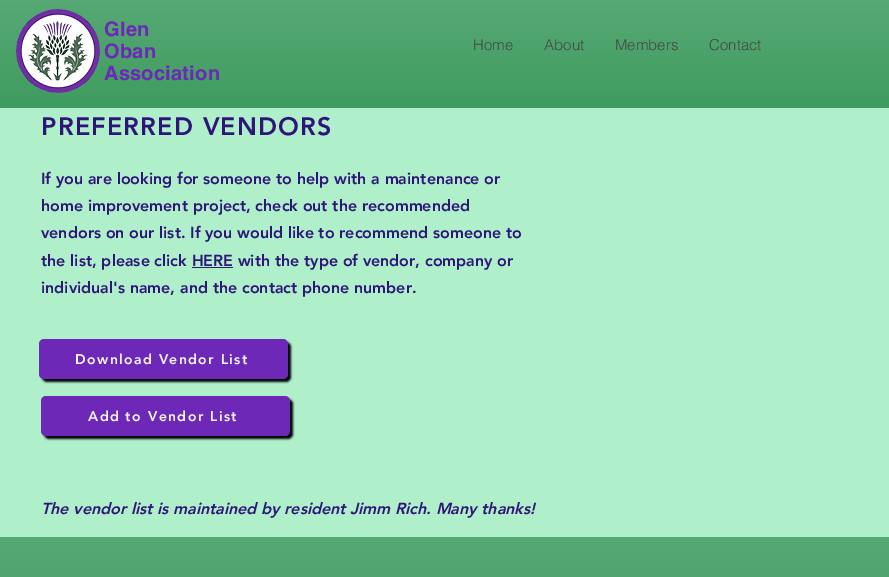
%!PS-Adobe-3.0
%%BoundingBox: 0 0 889 577
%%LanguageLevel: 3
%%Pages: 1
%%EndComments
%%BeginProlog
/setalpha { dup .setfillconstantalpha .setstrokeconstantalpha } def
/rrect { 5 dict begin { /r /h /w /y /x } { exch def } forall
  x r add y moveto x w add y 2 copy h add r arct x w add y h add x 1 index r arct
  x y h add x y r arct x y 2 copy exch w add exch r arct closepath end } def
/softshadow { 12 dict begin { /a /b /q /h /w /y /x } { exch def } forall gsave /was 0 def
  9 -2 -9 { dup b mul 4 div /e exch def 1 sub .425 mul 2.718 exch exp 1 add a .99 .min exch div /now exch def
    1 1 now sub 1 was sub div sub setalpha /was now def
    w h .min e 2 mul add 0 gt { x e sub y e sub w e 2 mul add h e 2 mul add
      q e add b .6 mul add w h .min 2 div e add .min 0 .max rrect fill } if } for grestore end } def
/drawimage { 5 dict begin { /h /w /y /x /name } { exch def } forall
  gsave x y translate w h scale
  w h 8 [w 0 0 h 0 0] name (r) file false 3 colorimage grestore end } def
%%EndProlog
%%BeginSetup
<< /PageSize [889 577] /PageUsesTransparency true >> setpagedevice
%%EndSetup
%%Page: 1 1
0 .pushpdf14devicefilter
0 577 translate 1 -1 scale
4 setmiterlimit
0.686 0.941 0.792 setrgbcolor
0 0 889 577 rectfill
0.11 0.541 0.263 setrgbcolor
0 0 889 108 rectfill
(images/1.raw) 0 0 889 108 drawimage
(images/2.raw) 16 9 84 84 drawimage
0.184 0.082 0.478 setrgbcolor
192 267 41 1 rectfill
0 setgray
44 399 249 40 5 1 1 softshadow
0.427 0.157 0.722 setrgbcolor
41 396 249 40 5 rrect fill
0 setgray
42 342 249 40 5 1 1 softshadow
0.427 0.157 0.722 setrgbcolor
39 339 249 40 5 rrect fill
0.11 0.541 0.263 setrgbcolor
0 537 889 40 rectfill
(images/3.raw) 0 537 889 40 drawimage
/helvetica-Bold [20 0 0 -20 0 0] selectfont
0.427 0.157 0.722 setrgbcolor
104 36 moveto 0.25 0 (Glen) ashow
104 58 moveto 0.25 0 (Oban) ashow
104 80 moveto 0.25 0 (Association) ashow
/helvetica-Light [15 0 0 -15 0 0] selectfont
0.267 setgray
473 50 moveto (Home) show
544 50 moveto (About) show
615 50 moveto (Members) show
709 50 moveto (Contact) show
/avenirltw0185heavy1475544-Black [25 0 0 -25 0 0] selectfont
0.184 0.082 0.478 setrgbcolor
41 135 moveto 1.25 0 (PREFERRED VENDORS) ashow
/avenirltw0185heavy1475544-Black [16 0 0 -16 0 0] selectfont
41 184 moveto (If you are looking for someone to help with a maintenance or) show
41 211 moveto (home improvement project, check out the recommended) show
41 238 moveto (vendors on our list. If you would like to recommend someone to) show
41 266 moveto (the list, please click HERE with the type of vendor, company or) show
41 293 moveto (individual's name, and the contact phone number.) show
/avenirltw0185heavy1475544-Black [14 0 0 -14 0 0] selectfont
0.965 setgray
88 421 moveto 1.4 0 (Add to Vendor List) ashow
/avenirltw0185heavy1475544-BlackItalic [16 0 0 -16 0 0] selectfont
0.184 0.082 0.478 setrgbcolor
41 514 moveto (The vendor list is maintained by resident Jimm Rich. Many thanks!) show
/avenirltw0185heavy1475544-Black [14 0 0 -14 0 0] selectfont
0.965 setgray
75 364 moveto 1.4 0 (Download Vendor List) ashow
.poppdf14devicefilter showpage
%%EOF
